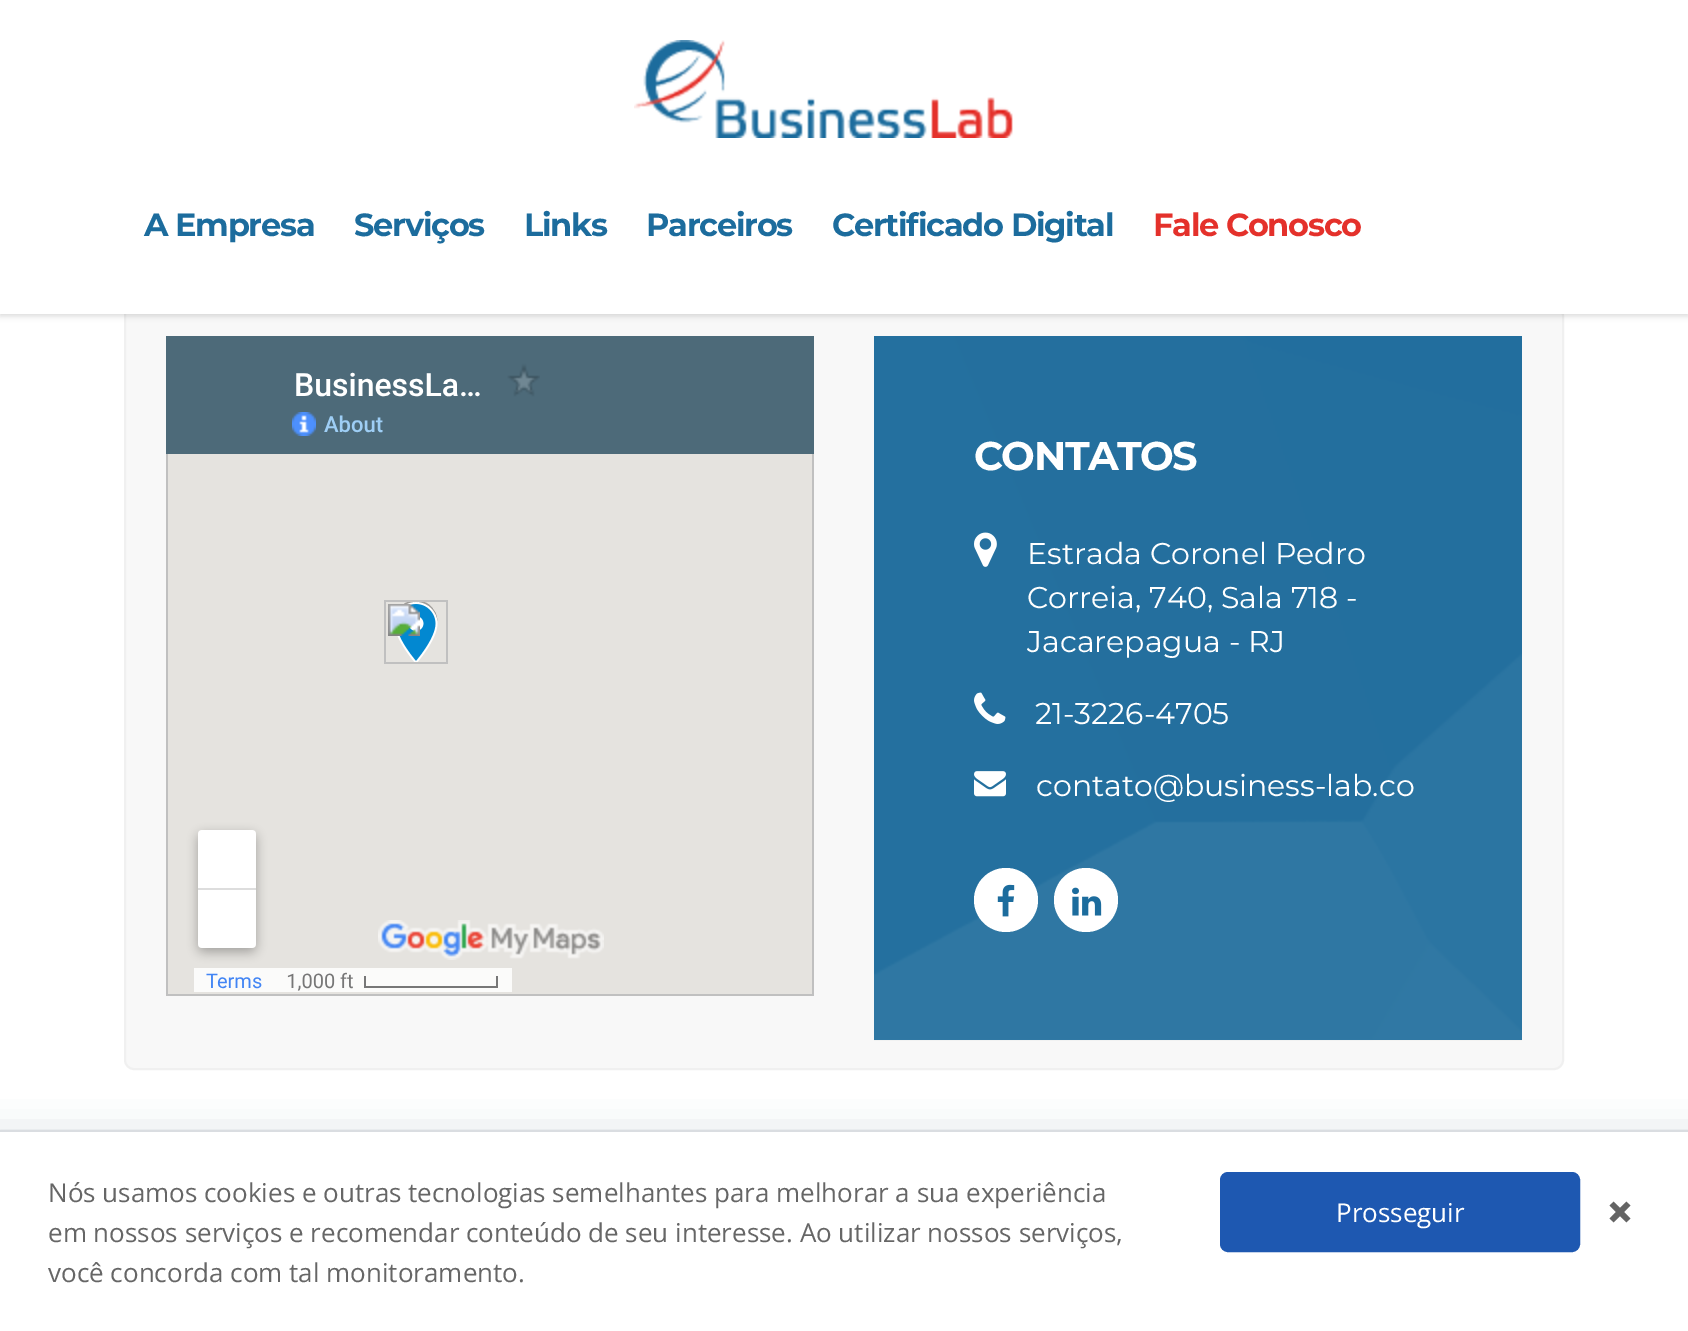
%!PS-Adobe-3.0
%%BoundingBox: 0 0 1688 1331
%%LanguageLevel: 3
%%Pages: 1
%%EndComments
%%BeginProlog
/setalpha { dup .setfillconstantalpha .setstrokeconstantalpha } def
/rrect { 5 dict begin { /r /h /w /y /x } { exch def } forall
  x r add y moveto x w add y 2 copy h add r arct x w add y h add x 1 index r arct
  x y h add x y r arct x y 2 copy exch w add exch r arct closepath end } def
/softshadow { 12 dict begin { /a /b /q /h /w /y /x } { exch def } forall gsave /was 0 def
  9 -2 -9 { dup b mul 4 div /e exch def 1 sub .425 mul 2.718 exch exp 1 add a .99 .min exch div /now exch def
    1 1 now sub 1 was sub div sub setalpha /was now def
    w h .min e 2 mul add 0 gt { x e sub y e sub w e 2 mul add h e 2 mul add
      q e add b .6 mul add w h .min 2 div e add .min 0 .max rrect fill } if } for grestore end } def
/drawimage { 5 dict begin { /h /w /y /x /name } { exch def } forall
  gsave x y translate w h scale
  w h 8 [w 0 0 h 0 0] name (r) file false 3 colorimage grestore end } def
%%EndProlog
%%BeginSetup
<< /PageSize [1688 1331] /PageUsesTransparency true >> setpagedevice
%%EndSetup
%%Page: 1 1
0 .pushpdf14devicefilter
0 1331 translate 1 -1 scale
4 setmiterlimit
1 setgray
0 0 1688 1331 rectfill
0.973 setgray
newpath 125 307 moveto 1554 307 lineto 1559 307 1563 311 1563 316 curveto 1563 1060 lineto 1563 1065 1559 1069 1554 1069 curveto 134 1069 lineto 129 1069 125 1065 125 1060 curveto closepath gsave fill grestore
0.941 setgray
2 setlinewidth
stroke
0 setgray
0 2 1688 314 0 3 0.15 softshadow
1 setgray
0 0 1688 314 rectfill
(images/1.raw) 634 40 379 98 drawimage
(images/2.raw) 166 336 648 660 drawimage
(images/3.raw) 874 336 648 705 drawimage
(images/4.raw) 974 532 23 35 drawimage
(images/5.raw) 974 692 32 32 drawimage
(images/6.raw) 974 771 32 26 drawimage
newpath 1006 900 32 0 360 arc closepath fill
(images/7.raw) 997 884 18 33 drawimage
newpath 1086 900 32 0 360 arc closepath fill
(images/8.raw) 1072 887 30 29 drawimage
0.141 0.184 0.259 setrgbcolor
-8 1144 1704 176 0 20 0.31 softshadow
0.08 setalpha
-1 1131 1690 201 rectstroke
1 setalpha
1 setgray
0 1132 1688 199 rectfill
0.118 0.345 0.694 setrgbcolor
1221 1173 358 78 7 rrect gsave fill grestore
stroke
(images/9.raw) 1609 1201 22 22 drawimage
/Montserrat-Bold [32 0 0 -32 0 0] selectfont
0.11 0.424 0.616 setrgbcolor
144 236 moveto -1.25 0 (A Empresa) ashow
354 236 moveto -1.25 0 (Serviços) ashow
524 236 moveto -1.25 0 (Links) ashow
646 236 moveto -1.25 0 (Parceiros) ashow
832 236 moveto -1.25 0 (Certificado Digital) ashow
0.894 0.192 0.169 setrgbcolor
1153 236 moveto -1.25 0 (Fale Conosco) ashow
/Montserrat-Bold [40 0 0 -40 0 0] selectfont
1 setgray
974 470 moveto -1.5 0 (CONTATOS) ashow
/Montserrat-Regular [30 0 0 -30 0 0] selectfont
1027 564 moveto (Estrada Coronel Pedro) show
1027 608 moveto (Correia, 740, Sala 718 -) show
1027 652 moveto (Jacarepagua - RJ) show
1035 724 moveto (21-3226-4705) show
1036 796 moveto (contato@business-lab.co) show
/OpenSans-Regular [26 0 0 -26 0 0] selectfont
0.4 setgray
48 1202 moveto (Nós usamos cookies e outras tecnologias semelhantes para melhorar a sua experiência) show
48 1242 moveto (em nossos serviços e recomendar conteúdo de seu interesse. Ao utilizar nossos serviços,) show
48 1282 moveto (você concorda com tal monitoramento.) show
1 setgray
1336 1222 moveto (Prosseguir) show
.poppdf14devicefilter showpage
%%EOF
